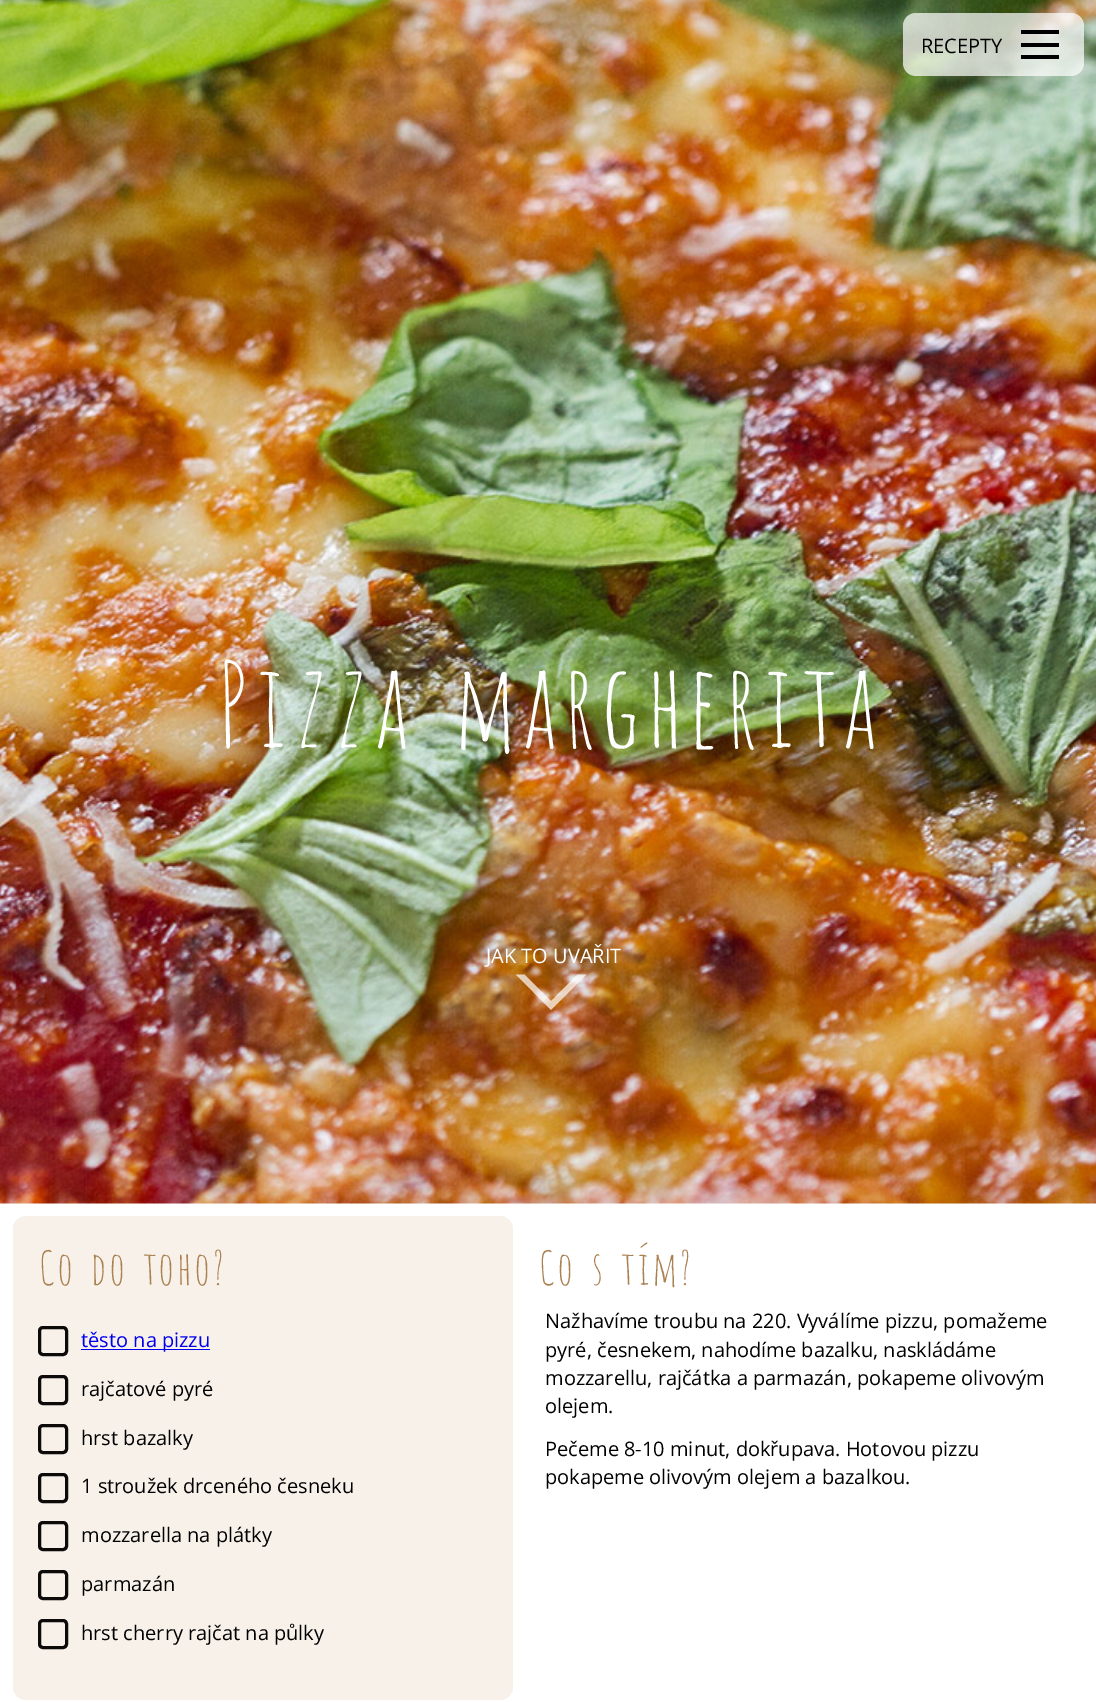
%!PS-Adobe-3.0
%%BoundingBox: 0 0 1096 1702
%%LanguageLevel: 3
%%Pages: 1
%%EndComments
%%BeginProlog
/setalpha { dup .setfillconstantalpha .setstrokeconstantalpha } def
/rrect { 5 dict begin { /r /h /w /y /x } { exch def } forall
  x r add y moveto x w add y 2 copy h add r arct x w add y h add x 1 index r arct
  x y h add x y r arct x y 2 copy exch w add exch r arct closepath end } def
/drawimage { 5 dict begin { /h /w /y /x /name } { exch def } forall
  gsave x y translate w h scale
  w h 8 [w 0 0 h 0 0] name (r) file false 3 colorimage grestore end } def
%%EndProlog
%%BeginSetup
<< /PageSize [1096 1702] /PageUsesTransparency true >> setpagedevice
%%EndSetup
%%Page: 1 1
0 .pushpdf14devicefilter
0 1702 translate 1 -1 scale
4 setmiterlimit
1 setgray
0 0 1096 1702 rectfill
(images/1.raw) 0 0 1096 1204 drawimage
0.7 setalpha
903 13 181 63 13 rrect fill
1 setalpha
0 setgray
1021 30 38 4 rectfill
1021 43 38 4 rectfill
1021 55 38 4 rectfill
0.7 setalpha
1 setgray
newpath 586.5 974.5 moveto 551 1010 lineto 551 1001 lineto 577.5 974.5 lineto closepath fill
newpath 551 1010 moveto 516 974.5 lineto 524.5 974.5 lineto 551 1001 lineto closepath fill
1 setalpha
0.969 0.945 0.914 setrgbcolor
13 1216 500 484 13 rrect fill
0.051 0.039 0.039 setrgbcolor
3 setlinewidth
39.5 1327.5 27 27 3.5 rrect stroke
0 0 0.933 setrgbcolor
81 1349 129 1 rectfill
0.051 0.039 0.039 setrgbcolor
39.5 1376.5 27 27 3.5 rrect stroke
39.5 1425.5 27 27 3.5 rrect stroke
39.5 1474.5 27 27 3.5 rrect stroke
39.5 1522.5 27 27 3.5 rrect stroke
39.5 1571.5 27 27 3.5 rrect stroke
39.5 1620.5 27 27 3.5 rrect stroke
/OpenSans-Regular [20 0 0 -20 0 0] selectfont
0 setgray
921 53 moveto (RECEPTY) show
/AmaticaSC-Regular [116 0 0 -116 0 0] selectfont
1 setgray
215 748 moveto (Pizza margherita) show
/OpenSans-Regular [20 0 0 -20 0 0] selectfont
486 963 moveto (JAK TO UVAŘIT) show
/AmaticaSC-Regular [46 0 0 -46 0 0] selectfont
0.675 0.506 0.322 setrgbcolor
38 1285 moveto (Co do toho?) show
/OpenSans-Regular [20 0 0 -20 0 0] selectfont
0 0 0.933 setrgbcolor
81 1347 moveto (těsto na pizzu) show
0 setgray
81 1396 moveto (rajčatové pyré) show
81 1445 moveto (hrst bazalky) show
81 1493 moveto (1 stroužek drceného česneku) show
81 1542 moveto (mozzarella na plátky) show
81 1591 moveto (parmazán) show
81 1640 moveto (hrst cherry rajčat na půlky) show
/AmaticaSC-Regular [46 0 0 -46 0 0] selectfont
0.675 0.506 0.322 setrgbcolor
538 1285 moveto (Co s tím?) show
/OpenSans-Regular [20 0 0 -20 0 0] selectfont
0 setgray
545 1328 moveto (Nažhavíme troubu na 220. Vyválíme pizzu, pomažeme) show
545 1357 moveto (pyré, česnekem, nahodíme bazalku, naskládáme) show
545 1385 moveto (mozzarellu, rajčátka a parmazán, pokapeme olivovým) show
545 1413 moveto (olejem.) show
545 1456 moveto (Pečeme 8-10 minut, dokřupava. Hotovou pizzu) show
545 1484 moveto (pokapeme olivovým olejem a bazalkou.) show
.poppdf14devicefilter showpage
%%EOF
